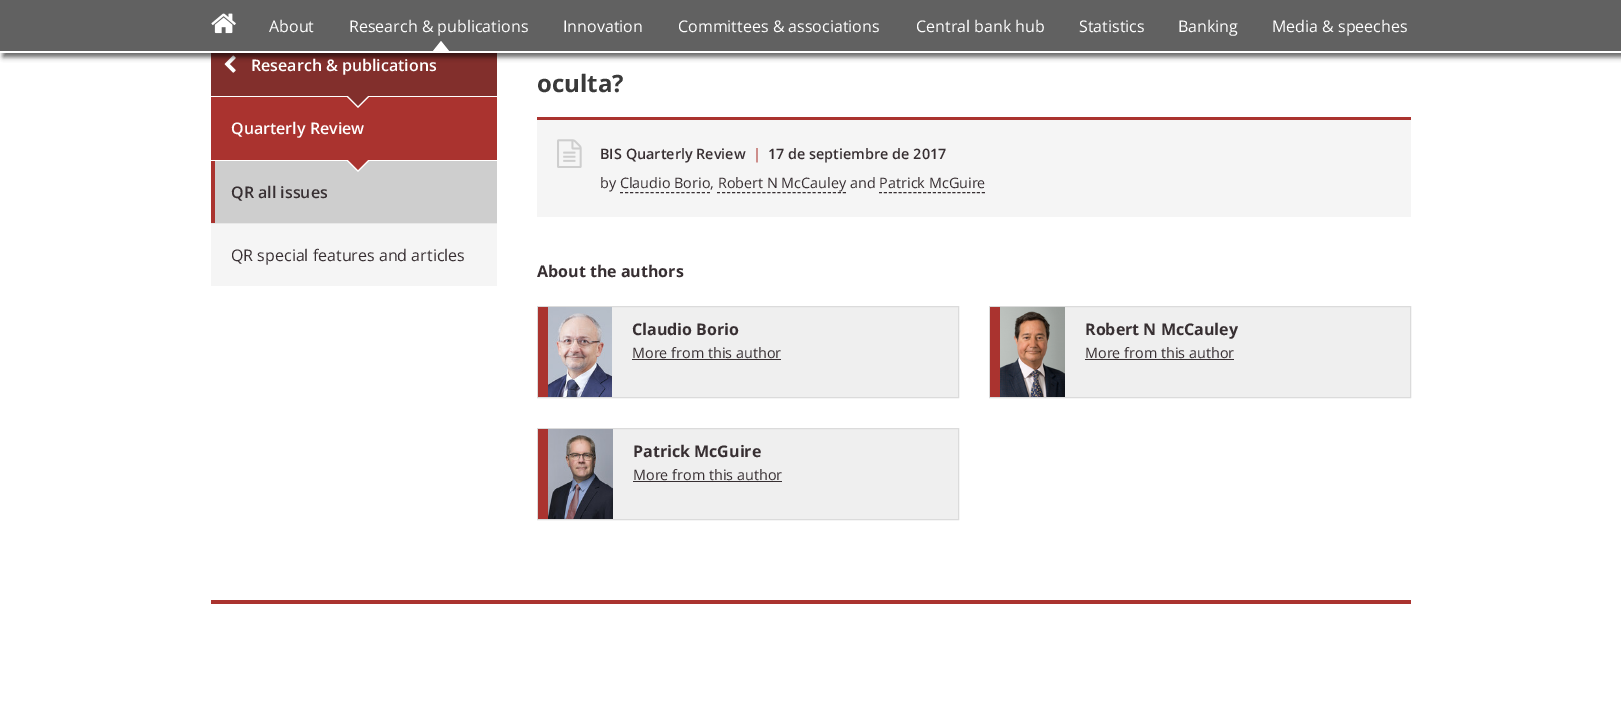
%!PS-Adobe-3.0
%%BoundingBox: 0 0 1621 708
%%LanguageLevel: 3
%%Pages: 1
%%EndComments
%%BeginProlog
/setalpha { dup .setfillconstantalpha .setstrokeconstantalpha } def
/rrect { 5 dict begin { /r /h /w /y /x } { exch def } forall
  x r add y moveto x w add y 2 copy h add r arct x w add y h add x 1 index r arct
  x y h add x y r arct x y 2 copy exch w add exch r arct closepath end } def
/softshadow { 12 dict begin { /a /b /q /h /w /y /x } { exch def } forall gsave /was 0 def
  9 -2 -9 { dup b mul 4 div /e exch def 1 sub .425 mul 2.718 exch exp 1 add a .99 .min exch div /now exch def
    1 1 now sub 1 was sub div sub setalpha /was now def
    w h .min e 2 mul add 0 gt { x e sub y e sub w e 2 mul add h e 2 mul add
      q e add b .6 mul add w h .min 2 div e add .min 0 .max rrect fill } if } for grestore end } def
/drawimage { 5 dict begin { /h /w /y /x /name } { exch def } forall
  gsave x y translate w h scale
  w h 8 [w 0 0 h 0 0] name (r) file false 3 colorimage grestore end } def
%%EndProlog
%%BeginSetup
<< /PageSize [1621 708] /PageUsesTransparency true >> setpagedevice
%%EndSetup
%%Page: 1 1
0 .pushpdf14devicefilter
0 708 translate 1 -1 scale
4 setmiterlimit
1 setgray
0 0 1621 708 rectfill
0.51 0.184 0.173 setrgbcolor
211 53 286 43 rectfill
(images/2.raw) 224 55 12 18 drawimage
0 setgray
3 4 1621 53 0 2.5 0.6 softshadow
0.38 setgray
0 0 1621 51 rectfill
1 setgray
0 51 1621 2 rectfill
(images/1.raw) 211 13 25 21 drawimage
newpath 449 51 moveto 433 51 lineto 441 41 lineto closepath fill
0.961 setgray
211 224 286 62 rectfill
0.667 0.2 0.184 setrgbcolor
211 97 286 63 rectfill
1 setgray
newpath 346 96 moveto 370 96 lineto 358 108 lineto closepath fill
0.51 0.184 0.173 setrgbcolor
newpath 348 96 moveto 368 96 lineto 358 106 lineto closepath fill
0.808 setgray
215 161 282 62 rectfill
1 setgray
newpath 346 160 moveto 370 160 lineto 358 172 lineto closepath fill
0.667 0.2 0.184 setrgbcolor
newpath 348 160 moveto 368 160 lineto 358 170 lineto closepath fill
211 161 4 62 rectfill
0.91 setgray
211 223 286 1 rectfill
0.961 setgray
537 120 874 97 rectfill
0.667 0.2 0.184 setrgbcolor
537 117 874 3 rectfill
(images/3.raw) 557 139 25 29 drawimage
0.216 0.184 0.196 setrgbcolor
[3 2.12] 0 setdash
newpath 620 192.5 moveto 710 192.5 lineto stroke
[3 2.04] 0 setdash
newpath 717 192.5 moveto 846 192.5 lineto stroke
[3 1.9] 0 setdash
newpath 879 192.5 moveto 985 192.5 lineto stroke
0.937 setgray
612 307 346 90 rectfill
0.859 setgray
[] 0 setdash
537.5 306.5 421 91 rectstroke
0.667 0.2 0.184 setrgbcolor
538 307 10 90 rectfill
(images/4.raw) 548 307 64 90 drawimage
0.216 0.184 0.196 setrgbcolor
632 359 149 1 rectfill
0.937 setgray
1065 307 345 90 rectfill
0.859 setgray
989.5 306.5 421 91 rectstroke
0.667 0.2 0.184 setrgbcolor
990 307 10 90 rectfill
(images/5.raw) 1000 307 65 90 drawimage
0.216 0.184 0.196 setrgbcolor
1085 359 149 1 rectfill
0.937 setgray
613 429 345 90 rectfill
0.859 setgray
537.5 428.5 421 91 rectstroke
0.667 0.2 0.184 setrgbcolor
538 429 10 90 rectfill
(images/6.raw) 548 429 65 90 drawimage
0.216 0.184 0.196 setrgbcolor
633 481 149 1 rectfill
0.667 0.2 0.184 setrgbcolor
211 600 1200 4 rectfill
/OpenSans-Regular [16 0 0 -16 0 0] selectfont
1 setgray
269 32 moveto (About) show
349 32 moveto (Research & publications) show
563 32 moveto (Innovation) show
678 32 moveto (Committees & associations) show
916 32 moveto (Central bank hub) show
1079 32 moveto (Statistics) show
1178 32 moveto (Banking) show
1272 32 moveto (Media & speeches) show
/OpenSans-SemiBold [16 0 0 -16 0 0] selectfont
251 71 moveto (Research & publications) show
231 134 moveto (Quarterly Review) show
0.216 0.184 0.196 setrgbcolor
231 198 moveto (QR all issues) show
/OpenSans-Regular [16 0 0 -16 0 0] selectfont
231 261 moveto (QR special features and articles) show
/OpenSans-Bold [24 0 0 -24 0 0] selectfont
0.227 setgray
537 92 moveto (oculta?) show
/OpenSans-SemiBold [14.4 0 0 -14.4 0 0] selectfont
0.216 0.184 0.196 setrgbcolor
600 159 moveto (BIS Quarterly Review) show
/OpenSans-Regular [14.4 0 0 -14.4 0 0] selectfont
0.667 0.2 0.184 setrgbcolor
753 159 moveto (|) show
/OpenSans-SemiBold [14.4 0 0 -14.4 0 0] selectfont
0.216 0.184 0.196 setrgbcolor
768 159 moveto (17 de septiembre de 2017) show
/OpenSans-Regular [14.4 0 0 -14.4 0 0] selectfont
600 188 moveto (by Claudio Borio, Robert N McCauley and Patrick McGuire) show
/OpenSans-Bold [16 0 0 -16 0 0] selectfont
537 277 moveto (About the authors) show
632 335 moveto (Claudio Borio) show
/OpenSans-Regular [14.4 0 0 -14.4 0 0] selectfont
632 358 moveto (More from this author) show
/OpenSans-Bold [16 0 0 -16 0 0] selectfont
1085 335 moveto (Robert N McCauley) show
/OpenSans-Regular [14.4 0 0 -14.4 0 0] selectfont
1085 358 moveto (More from this author) show
/OpenSans-Bold [16 0 0 -16 0 0] selectfont
633 457 moveto (Patrick McGuire) show
/OpenSans-Regular [14.4 0 0 -14.4 0 0] selectfont
633 480 moveto (More from this author) show
.poppdf14devicefilter showpage
%%EOF
